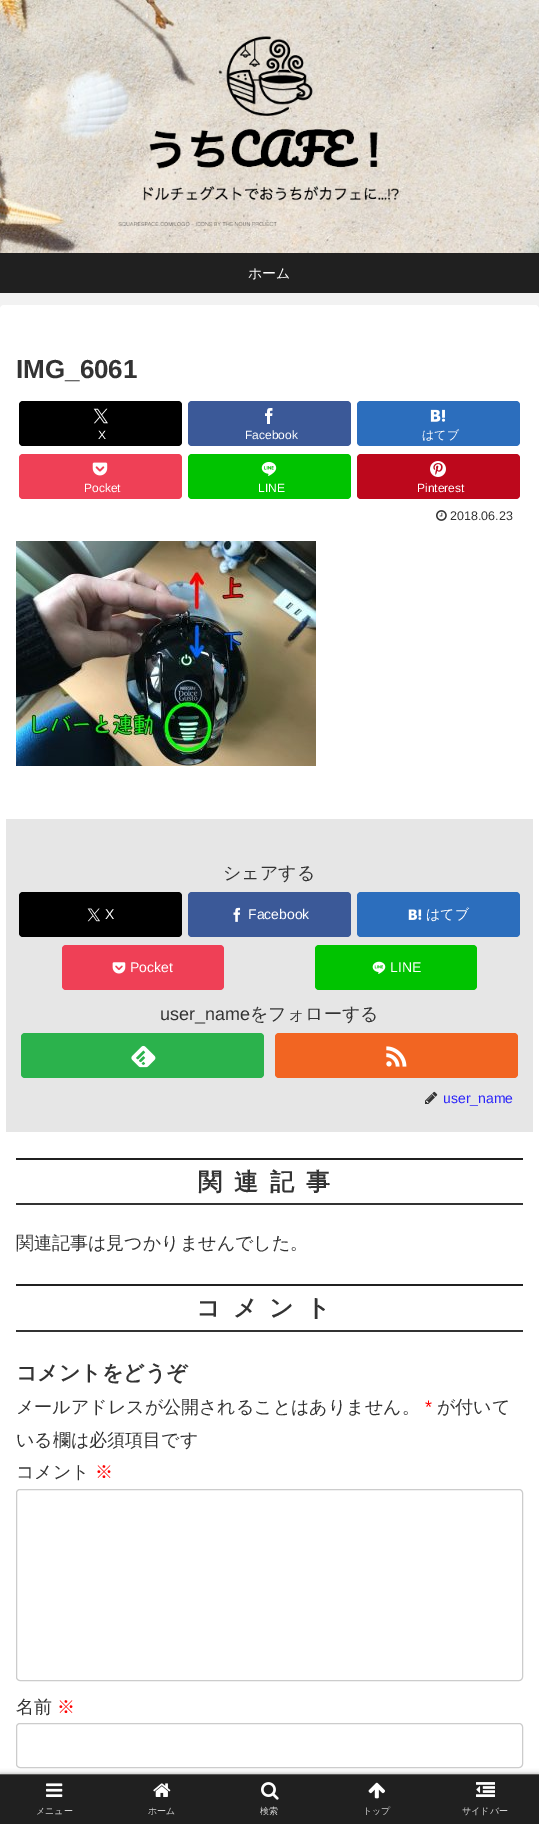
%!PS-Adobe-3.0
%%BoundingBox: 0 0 539 1824
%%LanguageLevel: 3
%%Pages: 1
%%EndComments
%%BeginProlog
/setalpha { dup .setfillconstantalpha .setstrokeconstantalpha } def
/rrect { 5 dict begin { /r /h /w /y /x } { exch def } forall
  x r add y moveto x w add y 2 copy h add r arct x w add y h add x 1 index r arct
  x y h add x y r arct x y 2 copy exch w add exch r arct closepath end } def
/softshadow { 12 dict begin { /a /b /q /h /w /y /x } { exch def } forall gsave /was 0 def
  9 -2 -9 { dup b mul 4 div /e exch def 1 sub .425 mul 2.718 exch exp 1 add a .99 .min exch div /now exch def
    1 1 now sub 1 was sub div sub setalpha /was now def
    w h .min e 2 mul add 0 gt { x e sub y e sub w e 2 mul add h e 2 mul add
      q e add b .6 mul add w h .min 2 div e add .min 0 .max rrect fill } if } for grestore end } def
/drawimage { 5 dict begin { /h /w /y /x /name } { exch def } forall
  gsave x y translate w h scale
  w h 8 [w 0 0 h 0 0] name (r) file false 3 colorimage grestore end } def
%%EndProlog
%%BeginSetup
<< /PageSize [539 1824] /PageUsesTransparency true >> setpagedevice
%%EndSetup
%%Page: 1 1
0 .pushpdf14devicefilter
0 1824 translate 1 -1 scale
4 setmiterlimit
0.949 setgray
0 0 539 1824 rectfill
(images/1.raw) 0 0 539 253 drawimage
(images/2.raw) 118 36 281 191 drawimage
0.125 setgray
0 253 539 40 rectfill
1 setgray
0 305 539 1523 4 rrect fill
0 setgray
19 401 163 45 4 rrect fill
(images/3.raw) 93 408 15 16 drawimage
0.231 0.349 0.596 setrgbcolor
188 401 163 45 4 rrect fill
(images/4.raw) 265 408 8 16 drawimage
0.173 0.431 0.741 setrgbcolor
357 401 163 45 4 rrect fill
(images/5.raw) 430 409 16 13 drawimage
0.937 0.251 0.337 setrgbcolor
19 454 163 45 4 rrect fill
(images/6.raw) 92 462 16 14 drawimage
0 0.765 0 setrgbcolor
188 454 163 45 4 rrect fill
(images/7.raw) 261 462 16 14 drawimage
0.741 0.031 0.11 setrgbcolor
357 454 163 45 4 rrect fill
(images/8.raw) 430 461 16 16 drawimage
(images/9.raw) 436 510 11 11 drawimage
(images/10.raw) 16 541 300 225 drawimage
0.902 setgray
6 819 527 313 rectfill
0 setgray
19 892 163 45 4 rrect fill
(images/11.raw) 87 908 13 14 drawimage
0.231 0.349 0.596 setrgbcolor
188 892 163 45 4 rrect fill
(images/12.raw) 233 907 8 15 drawimage
0.173 0.431 0.741 setrgbcolor
357 892 163 45 4 rrect fill
(images/13.raw) 408 909 14 11 drawimage
0.937 0.251 0.337 setrgbcolor
62 945 162 45 4 rrect fill
(images/14.raw) 112 962 14 12 drawimage
0 0.765 0 setrgbcolor
315 945 162 45 4 rrect fill
(images/15.raw) 372 961 14 13 drawimage
0.169 0.698 0.298 setrgbcolor
21 1033 243 45 4 rrect fill
(images/16.raw) 131 1045 25 23 drawimage
0.949 0.396 0.133 setrgbcolor
275 1033 243 45 4 rrect fill
(images/17.raw) 386 1046 21 21 drawimage
(images/18.raw) 425 1091 13 13 drawimage
0.125 setgray
16 1158 507 2 rectfill
0.2 setgray
16 1203 507 2 rectfill
0.125 setgray
16 1284 507 2 rectfill
0.2 setgray
16 1330 507 2 rectfill
0.8 setgray
16.5 1489.5 506 191 3.5 rrect stroke
16.5 1723.5 506 44 3.5 rrect stroke
0.663 setgray
0 1774 539 50 0 2.5 1 softshadow
0.125 setgray
0 1775 539 49 rectfill
0.349 0.345 0.341 setrgbcolor
0 1774 539 1 rectfill
(images/19.raw) 46 1783 17 14 drawimage
(images/20.raw) 153 1783 18 14 drawimage
(images/21.raw) 261 1782 18 18 drawimage
(images/22.raw) 368 1782 17 17 drawimage
(images/23.raw) 476 1782 19 15 drawimage
/WenQuanYiZenHei-Medium [14 0 0 -14 0 0] selectfont
1 setgray
248 278 moveto (ホーム) show
/LiberationSans-Bold [26 0 0 -26 0 0] selectfont
0.2 setgray
16 378 moveto (IMG_6061) show
/LiberationSans-Regular [12 0 0 -12 0 0] selectfont
1 setgray
98 439 moveto (X) show
245 439 moveto (Facebook) show
/WenQuanYiZenHei-Medium [12 0 0 -12 0 0] selectfont
422 439 moveto (はてブ) show
/LiberationSans-Regular [12 0 0 -12 0 0] selectfont
84 492 moveto (Pocket) show
258 492 moveto (LINE) show
417 492 moveto (Pinterest) show
/LiberationSans-Regular [12.5 0 0 -12.5 0 0] selectfont
0.2 setgray
450 520 moveto (2018.06.23) show
/WenQuanYiZenHei-Medium [18 0 0 -18 0 0] selectfont
223 879 moveto (シェアする) show
/LiberationSans-Regular [14 0 0 -14 0 0] selectfont
1 setgray
105 919 moveto (X) show
248 919 moveto (Facebook) show
/WenQuanYiZenHei-Medium [14 0 0 -14 0 0] selectfont
426 919 moveto (はてブ) show
/LiberationSans-Regular [14 0 0 -14 0 0] selectfont
130 972 moveto (Pocket) show
390 972 moveto (LINE) show
/LiberationSans-Regular [18 0 0 -18 0 0] selectfont
0.2 setgray
160 1020 moveto (user_name) show
/WenQuanYiZenHei-Medium [18 0 0 -18 0 0] selectfont
250 1020 moveto (をフォローする) show
/LiberationSans-Regular [14 0 0 -14 0 0] selectfont
0.169 0.141 0.976 setrgbcolor
443 1103 moveto (user_name) show
/WenQuanYiZenHei-Bold [24 0 0 -24 0 0] selectfont
0.2 setgray
198 1190 moveto 12 0 (関連記事) ashow
/WenQuanYiZenHei-Medium [18 0 0 -18 0 0] selectfont
16 1249 moveto (関連記事は見つかりませんでした。) show
/WenQuanYiZenHei-Bold [24 0 0 -24 0 0] selectfont
196 1316 moveto 12 0 (コメント) ashow
/WenQuanYiZenHei-Bold [21 0 0 -21 0 0] selectfont
16 1380 moveto (コメントをどうぞ) show
/WenQuanYiZenHei-Medium [18 0 0 -18 0 0] selectfont
16 1413 moveto (メールアドレスが公開されることはありません。) show
/LiberationSans-Regular [18 0 0 -18 0 0] selectfont
1 0 0 setrgbcolor
425 1413 moveto (*) show
/WenQuanYiZenHei-Medium [18 0 0 -18 0 0] selectfont
0.2 setgray
437 1413 moveto (が付いて) show
16 1446 moveto (いる欄は必須項目です) show
16 1478 moveto (コメント) show
1 0 0 setrgbcolor
95 1478 moveto (※) show
0.2 setgray
16 1713 moveto (名前) show
1 0 0 setrgbcolor
57 1713 moveto (※) show
/WenQuanYiZenHei-Medium [9 0 0 -9 0 0] selectfont
0.824 setgray
36 1814 moveto (メニュー) show
148 1814 moveto (ホーム) show
260 1814 moveto (検索) show
363 1814 moveto (トップ) show
462 1814 moveto (サイドバー) show
.poppdf14devicefilter showpage
%%EOF
